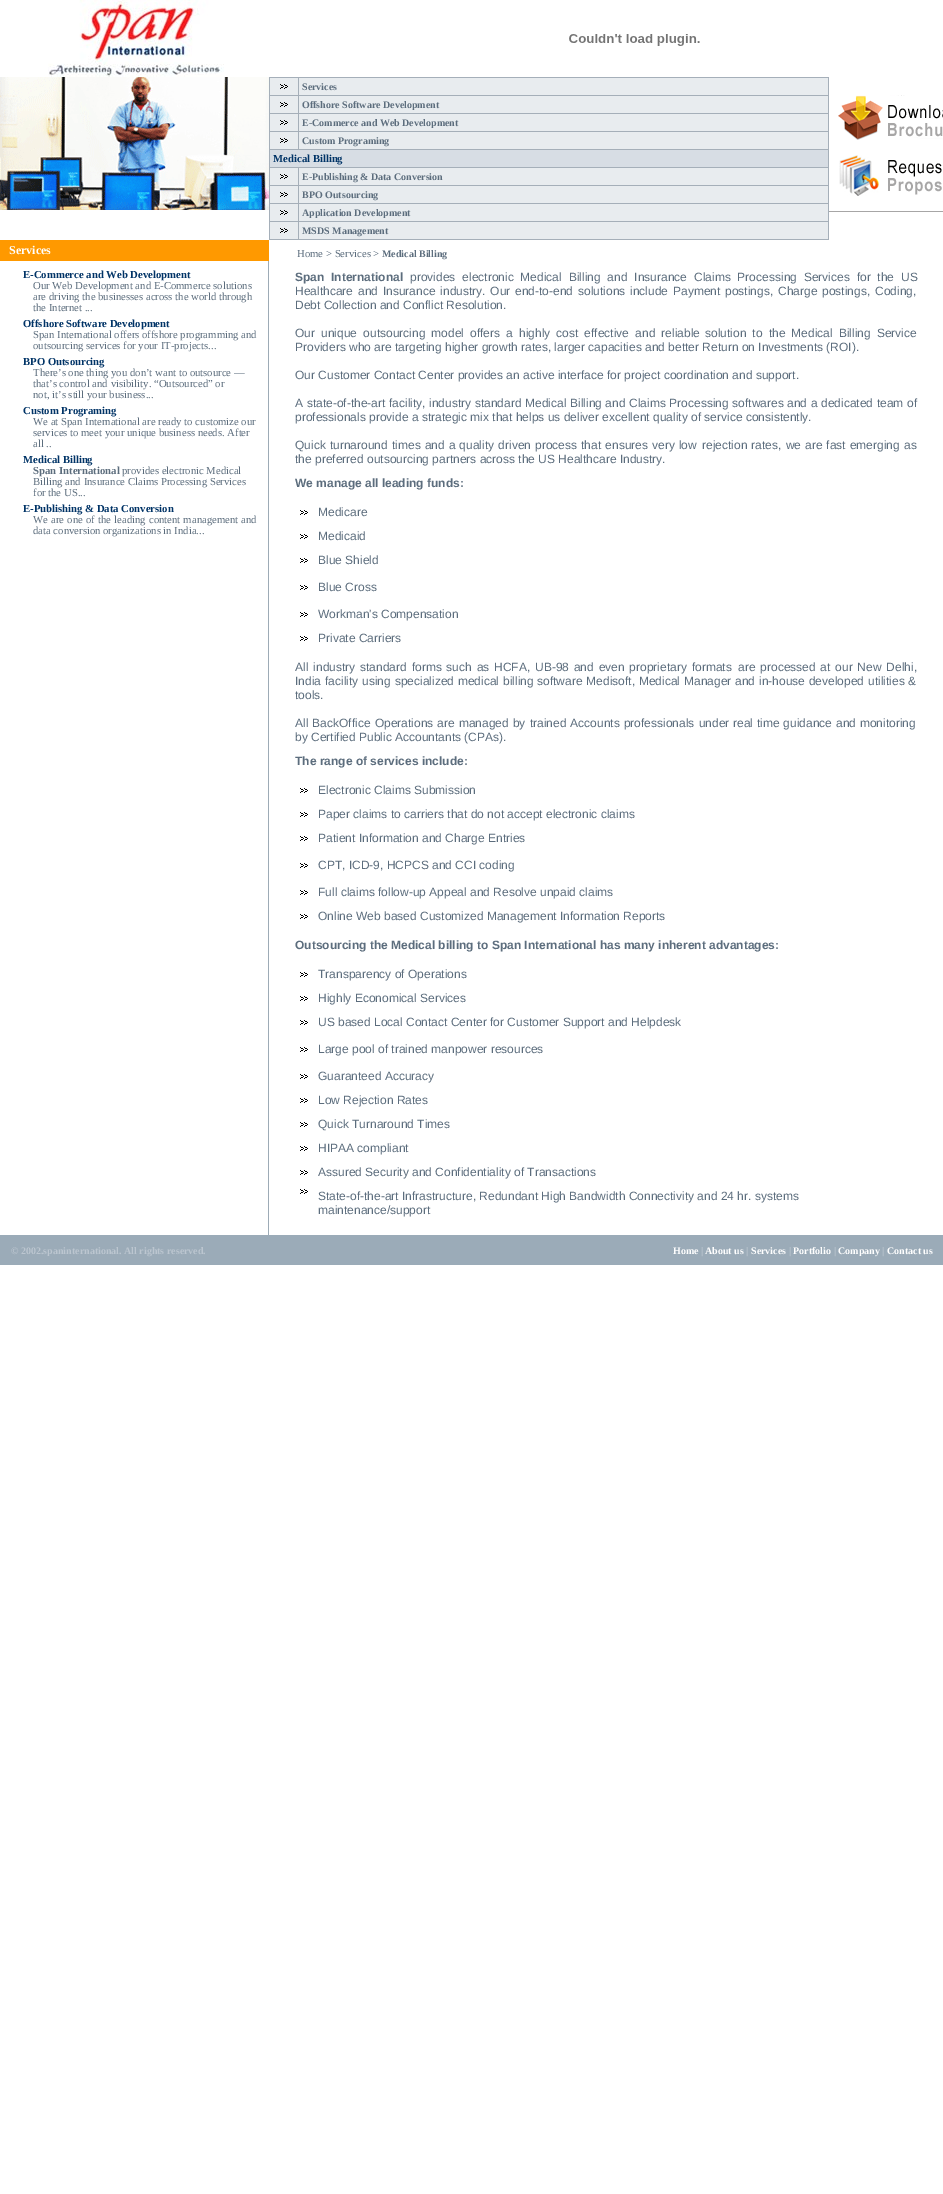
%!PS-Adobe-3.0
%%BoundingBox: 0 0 943 2194
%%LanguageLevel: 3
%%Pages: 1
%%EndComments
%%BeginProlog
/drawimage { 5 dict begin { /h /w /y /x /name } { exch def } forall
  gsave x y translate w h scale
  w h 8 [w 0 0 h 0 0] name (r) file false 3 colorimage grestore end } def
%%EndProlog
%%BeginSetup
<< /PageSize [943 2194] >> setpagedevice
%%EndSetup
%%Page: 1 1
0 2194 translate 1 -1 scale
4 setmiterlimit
1 setgray
0 0 943 2194 rectfill
(images/1.raw) 48 0 176 77 drawimage
(images/2.raw) 569 34 131 12 drawimage
(images/3.raw) 0 77 269 133 drawimage
0.647 0.686 0.725 setrgbcolor
269 77 560 163 rectfill
0.91 0.925 0.937 setrgbcolor
270 78 28 17 rectfill
(images/4.raw) 280 84 8 5 drawimage
299 78 529 17 rectfill
270 96 28 17 rectfill
(images/4.raw) 280 102 8 5 drawimage
299 96 529 17 rectfill
270 114 28 17 rectfill
(images/4.raw) 280 120 8 5 drawimage
299 114 529 17 rectfill
270 132 28 17 rectfill
(images/4.raw) 280 138 8 5 drawimage
299 132 529 17 rectfill
0.843 0.867 0.894 setrgbcolor
270 150 558 17 rectfill
0.91 0.925 0.937 setrgbcolor
270 168 28 17 rectfill
(images/4.raw) 280 174 8 5 drawimage
299 168 529 17 rectfill
270 186 28 17 rectfill
(images/4.raw) 280 192 8 5 drawimage
299 186 529 17 rectfill
270 204 28 17 rectfill
(images/4.raw) 280 210 8 5 drawimage
299 204 529 17 rectfill
270 222 28 17 rectfill
(images/4.raw) 280 228 8 5 drawimage
299 222 529 17 rectfill
0.655 0.651 0.651 setrgbcolor
829 211 114 1 rectfill
(images/5.raw) 838 95 105 45 drawimage
(images/6.raw) 839 155 103 41 drawimage
0.616 0.671 0.714 setrgbcolor
268 261 1 974 rectfill
1 0.6 0 setrgbcolor
0 240 269 21 rectfill
(images/7.raw) 300 510 8 5 drawimage
(images/7.raw) 300 534 8 5 drawimage
(images/7.raw) 300 558 8 5 drawimage
(images/7.raw) 300 585 8 5 drawimage
(images/7.raw) 300 612 8 5 drawimage
(images/7.raw) 300 636 8 5 drawimage
(images/7.raw) 300 788 8 5 drawimage
(images/7.raw) 300 812 8 5 drawimage
(images/7.raw) 300 836 8 5 drawimage
(images/7.raw) 300 863 8 5 drawimage
(images/7.raw) 300 890 8 5 drawimage
(images/7.raw) 300 914 8 5 drawimage
(images/7.raw) 300 972 8 5 drawimage
(images/7.raw) 300 996 8 5 drawimage
(images/7.raw) 300 1020 8 5 drawimage
(images/7.raw) 300 1047 8 5 drawimage
(images/7.raw) 300 1074 8 5 drawimage
(images/7.raw) 300 1098 8 5 drawimage
(images/7.raw) 300 1122 8 5 drawimage
(images/7.raw) 300 1146 8 5 drawimage
(images/7.raw) 300 1170 8 5 drawimage
(images/7.raw) 300 1189 8 5 drawimage
0.608 0.671 0.722 setrgbcolor
0 1235 943 30 rectfill
/LiberationSerif-Bold [10 0 0 -10 0 0] selectfont
0.361 0.427 0.49 setrgbcolor
302 90 moveto (Services) show
302 108 moveto (Offshore Software Development) show
302 126 moveto (E-Commerce and Web Development) show
302 144 moveto (Custom Programing) show
/LiberationSerif-Bold [10.7 0 0 -10.7 0 0] selectfont
0 0.2 0.4 setrgbcolor
273 162 moveto (Medical Billing) show
/LiberationSerif-Bold [10 0 0 -10 0 0] selectfont
0.361 0.427 0.49 setrgbcolor
302 180 moveto (E-Publishing & Data Conversion) show
302 198 moveto (BPO Outsourcing) show
302 216 moveto (Application Development) show
302 234 moveto (MSDS Management) show
/LiberationSerif-Bold [12 0 0 -12 0 0] selectfont
1 setgray
9 254 moveto (Services) show
/LiberationSerif-Bold [10.7 0 0 -10.7 0 0] selectfont
0 0.2 0.4 setrgbcolor
23 278 moveto (E-Commerce and Web Development) show
/LiberationSerif-Regular [10.7 0 0 -10.7 0 0] selectfont
0.361 0.427 0.49 setrgbcolor
33 289 moveto (Our Web Development and E-Commerce solutions) show
33 300 moveto (are driving the businesses across the world through) show
33 311 moveto (the Internet ...) show
/LiberationSerif-Bold [10.7 0 0 -10.7 0 0] selectfont
0 0.2 0.4 setrgbcolor
23 327 moveto (Offshore Software Development) show
/LiberationSerif-Regular [10.7 0 0 -10.7 0 0] selectfont
0.361 0.427 0.49 setrgbcolor
33 338 moveto (Span International offers offshore programming and) show
33 349 moveto (outsourcing services for your IT-projects...) show
/LiberationSerif-Bold [10.7 0 0 -10.7 0 0] selectfont
0 0.2 0.4 setrgbcolor
23 365 moveto (BPO Outsourcing) show
/LiberationSerif-Regular [10.7 0 0 -10.7 0 0] selectfont
0.361 0.427 0.49 setrgbcolor
33 376 moveto (There’s one thing you don’t want to outsource —) show
33 387 moveto (that’s control and visibility. “Outsourced” or) show
33 398 moveto (not, it’s still your business...) show
/LiberationSerif-Bold [10.7 0 0 -10.7 0 0] selectfont
0 0.2 0.4 setrgbcolor
23 414 moveto (Custom Programing) show
/LiberationSerif-Regular [10.7 0 0 -10.7 0 0] selectfont
0.361 0.427 0.49 setrgbcolor
33 425 moveto (We at Span International are ready to customize our) show
33 436 moveto (services to meet your unique business needs. After) show
33 447 moveto (all ..) show
/LiberationSerif-Bold [10.7 0 0 -10.7 0 0] selectfont
0 0.2 0.4 setrgbcolor
23 463 moveto (Medical Billing) show
0.361 0.427 0.49 setrgbcolor
33 474 moveto (Span International) show
/LiberationSerif-Regular [10.7 0 0 -10.7 0 0] selectfont
122 474 moveto (provides electronic Medical) show
33 485 moveto (Billing and Insurance Claims Processing Services) show
33 496 moveto (for the US...) show
/LiberationSerif-Bold [10.7 0 0 -10.7 0 0] selectfont
0 0.2 0.4 setrgbcolor
23 512 moveto (E-Publishing & Data Conversion) show
/LiberationSerif-Regular [10.7 0 0 -10.7 0 0] selectfont
0.361 0.427 0.49 setrgbcolor
33 523 moveto 0.5 0 32 (We are one of the leading content management and) widthshow
33 534 moveto (data conversion organizations in India...) show
297 257 moveto (Home > Services >) show
/LiberationSerif-Bold [10 0 0 -10 0 0] selectfont
382 257 moveto (Medical Billing) show
/LiberationSans-Bold [12 0 0 -12 0 0] selectfont
295 281 moveto 3.5 0 32 (Span International) widthshow
/LiberationSans-Regular [12 0 0 -12 0 0] selectfont
410 281 moveto 3.5 0 32 (provides electronic Medical Billing and Insurance) widthshow
694 281 moveto 3.5 0 32 (Claims Processing Services for the US) widthshow
295 295 moveto 1.5 0 32 (Healthcare and Insurance industry. Our) widthshow
515 295 moveto 1.5 0 32 (end-to-end solutions include Payment postings, Charge postings, Coding,) widthshow
295 309 moveto (Debt Collection and Conflict Resolution.) show
295 337 moveto 2.75 0 32 (Our unique outsourcing model offers a highly cost effective and reliable) widthshow
705 337 moveto 2.75 0 32 (solution to the Medical Billing Service) widthshow
295 351 moveto (Providers who are targeting higher growth rates, larger capacities and better Return on Investments \(ROI\).) show
295 379 moveto (Our Customer Contact Center provides an active interface for project coordination and support.) show
295 407 moveto 0.25 0 32 (A state-of-the-art facility, industry standard Medical Billing and Claims Processing softwares and a dedicated team of) widthshow
295 421 moveto (professionals provide a strategic mix that helps us deliver excellent quality of service consistently.) show
295 449 moveto 0.75 0 32 (Quick turnaround times and a quality driven process that ensures very low) widthshow
702 449 moveto 0.75 0 32 (rejection rates, we are fast emerging as) widthshow
295 463 moveto (the preferred outsourcing partners across the US Healthcare Industry.) show
/LiberationSans-Bold [12 0 0 -12 0 0] selectfont
295 487 moveto (We manage all leading funds:) show
/LiberationSans-Regular [12 0 0 -12 0 0] selectfont
318 516 moveto (Medicare) show
318 540 moveto (Medicaid) show
318 564 moveto (Blue Shield) show
318 591 moveto (Blue Cross) show
318 618 moveto (Workman's Compensation) show
318 642 moveto (Private Carriers) show
295 671 moveto 1.5 0 32 (All industry standard forms such as HCFA, UB-98 and even proprietary formats) widthshow
738 671 moveto 1.5 0 32 (are processed at our New Delhi,) widthshow
295 685 moveto 0.5 0 32 (India facility using specialized medical billing) widthshow
537 685 moveto 0.5 0 32 (software Medisoft, Medical Manager and in-house developed utilities &) widthshow
295 699 moveto (tools.) show
295 727 moveto 0.75 0 32 (All BackOffice Operations are managed by trained Accounts professionals under) widthshow
733 727 moveto 0.5 0 32 (real time guidance and monitoring) widthshow
295 741 moveto (by Certified Public Accountants \(CPAs\).) show
/LiberationSans-Bold [12 0 0 -12 0 0] selectfont
295 765 moveto (The range of services include:) show
/LiberationSans-Regular [12 0 0 -12 0 0] selectfont
318 794 moveto (Electronic Claims Submission) show
318 818 moveto (Paper claims to carriers that do not accept electronic claims) show
318 842 moveto (Patient Information and Charge Entries) show
318 869 moveto (CPT, ICD-9, HCPCS and CCI coding) show
318 896 moveto (Full claims follow-up Appeal and Resolve unpaid claims) show
318 920 moveto (Online Web based Customized Management Information Reports) show
/LiberationSans-Bold [12 0 0 -12 0 0] selectfont
295 949 moveto (Outsourcing the Medical billing to Span International has many inherent advantages:) show
/LiberationSans-Regular [12 0 0 -12 0 0] selectfont
318 978 moveto (Transparency of Operations) show
318 1002 moveto (Highly Economical Services) show
318 1026 moveto (US based Local Contact Center for Customer Support and Helpdesk) show
318 1053 moveto (Large pool of trained manpower resources) show
318 1080 moveto (Guaranteed Accuracy) show
318 1104 moveto (Low Rejection Rates) show
318 1128 moveto (Quick Turnaround Times) show
318 1152 moveto (HIPAA compliant) show
318 1176 moveto (Assured Security and Confidentiality of Transactions) show
318 1200 moveto (State-of-the-art Infrastructure, Redundant High Bandwidth Connectivity and 24 hr. systems) show
318 1214 moveto (maintenance/support) show
/LiberationSerif-Bold [10 0 0 -10 0 0] selectfont
0.737 0.776 0.816 setrgbcolor
11 1254 moveto (© 2002.spaninternational. All rights reserved.) show
1 setgray
673 1254 moveto (Home) show
0.737 0.776 0.816 setrgbcolor
701 1254 moveto (|) show
1 setgray
705 1254 moveto (About us) show
0.737 0.776 0.816 setrgbcolor
746 1254 moveto (|) show
1 setgray
751 1254 moveto (Services) show
0.737 0.776 0.816 setrgbcolor
789 1254 moveto (|) show
1 setgray
793 1254 moveto (Portfolio) show
0.737 0.776 0.816 setrgbcolor
834 1254 moveto (|) show
1 setgray
838 1254 moveto (Company) show
0.737 0.776 0.816 setrgbcolor
882 1254 moveto (|) show
1 setgray
887 1254 moveto (Contact us) show
showpage
%%EOF
